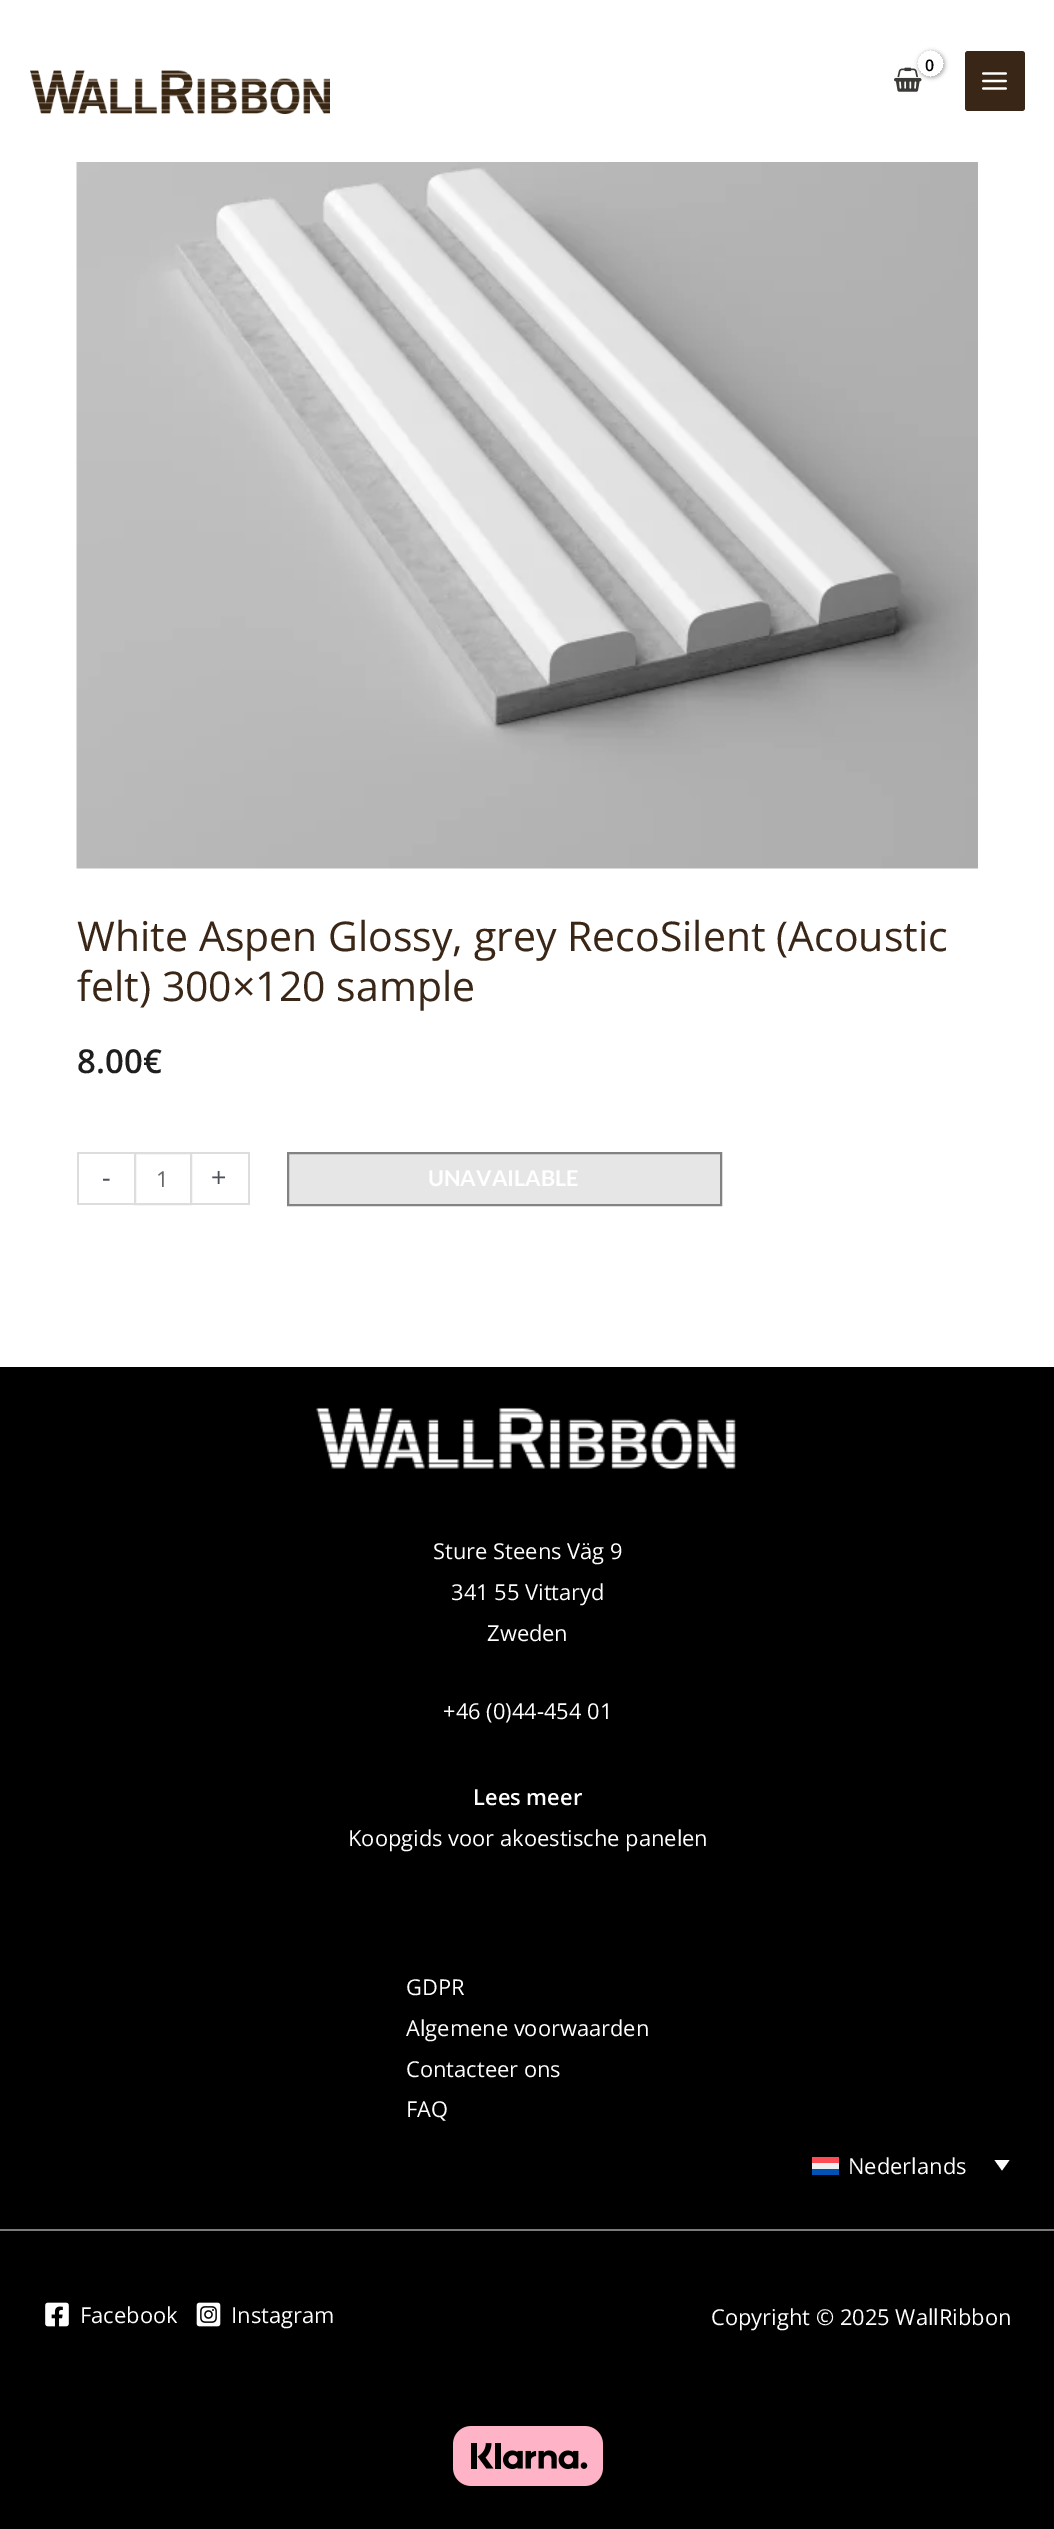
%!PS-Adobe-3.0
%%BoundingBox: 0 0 1054 2529
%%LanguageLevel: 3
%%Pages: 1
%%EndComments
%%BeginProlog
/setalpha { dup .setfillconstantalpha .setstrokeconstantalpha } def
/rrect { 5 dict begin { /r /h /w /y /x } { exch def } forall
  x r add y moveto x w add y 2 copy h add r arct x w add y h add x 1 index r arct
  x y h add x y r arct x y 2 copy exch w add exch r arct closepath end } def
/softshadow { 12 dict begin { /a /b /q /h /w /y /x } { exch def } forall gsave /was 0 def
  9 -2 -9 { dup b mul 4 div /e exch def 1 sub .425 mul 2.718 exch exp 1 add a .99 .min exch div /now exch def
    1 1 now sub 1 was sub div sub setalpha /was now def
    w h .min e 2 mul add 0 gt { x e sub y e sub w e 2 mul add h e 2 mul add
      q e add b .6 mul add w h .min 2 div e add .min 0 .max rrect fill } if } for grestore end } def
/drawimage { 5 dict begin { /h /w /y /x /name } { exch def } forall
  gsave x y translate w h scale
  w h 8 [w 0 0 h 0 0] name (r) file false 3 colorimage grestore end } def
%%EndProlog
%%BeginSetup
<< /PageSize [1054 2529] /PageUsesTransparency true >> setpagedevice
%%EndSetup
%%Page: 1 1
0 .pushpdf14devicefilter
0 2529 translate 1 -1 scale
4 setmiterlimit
1 setgray
0 0 1054 2529 rectfill
(images/1.raw) 894 67 28 25 drawimage
gsave
newpath 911 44 moveto 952 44 lineto 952 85 lineto 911 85 lineto closepath 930.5 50 moveto 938 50 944 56 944 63.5 curveto 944 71 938 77 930.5 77 curveto 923 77 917 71 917 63.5 curveto 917 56 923 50 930.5 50 curveto closepath eoclip newpath
0 setgray
918 51 27 27 13.5 2 0.3 softshadow
grestore
0.227 0.149 0.086 setrgbcolor
965 51 60 60 3 rrect fill
(images/2.raw) 982 72 25 18 drawimage
(images/3.raw) 30 70 300 44 drawimage
(images/4.raw) 76 162 902 707 drawimage
0.867 setgray
77 1152 57 2 rectfill
77 1203 57 2 rectfill
77 1152 2 53 rectfill
2 setlinewidth
135 1153 56 51 rectstroke
192 1152 57 2 rectfill
248 1152 2 53 rectfill
192 1203 57 2 rectfill
0.902 setgray
newpath 288 1153 moveto 721 1153 lineto 721 1205 lineto 288 1205 lineto closepath gsave fill grestore
0.51 setgray
stroke
0 setgray
0 1367 1054 862 rectfill
(images/5.raw) 316 1407 420 63 drawimage
1 0.294 0.333 setrgbcolor
812 2157 27 6 rectfill
1 setgray
newpath 994.5 2160 moveto 1009.5 2160 lineto 1002 2170.5 lineto closepath fill
0.941 setgray
812 2163 27 6 rectfill
0 0.322 0.706 setrgbcolor
812 2169 27 6 rectfill
0.478 setgray
0 2229 1054 2 rectfill
0 setgray
0 2231 1054 298 rectfill
(images/6.raw) 45 2302 24 25 drawimage
(images/7.raw) 196 2302 25 25 drawimage
(images/8.raw) 453 2426 150 60 drawimage
/OpenSans-SemiBold [16 0 0 -16 0 0] selectfont
925 71 moveto -1 0 (0) ashow
/OpenSans-Regular [41 0 0 -41 0 0] selectfont
0.227 0.149 0.086 setrgbcolor
77 951 moveto (White Aspen Glossy, grey RecoSilent \(Acoustic) show
77 1001 moveto (felt\) 300×120 sample) show
/OpenSans-SemiBold [33 0 0 -33 0 0] selectfont
0.118 setgray
77 1073 moveto (8.00€) show
/OpenSans-Regular [27 0 0 -27 0 0] selectfont
0.294 0.31 0.345 setrgbcolor
102 1187 moveto (-) show
/OpenSans-Regular [21.9 0 0 -21.9 0 0] selectfont
0.4 setgray
156 1187 moveto (1) show
/OpenSans-Regular [27 0 0 -27 0 0] selectfont
0.294 0.31 0.345 setrgbcolor
211 1187 moveto (+) show
/Lato-Bold [21.9 0 0 -21.9 0 0] selectfont
1 setgray
428 1186 moveto (UNAVAILABLE) show
/OpenSans-Regular [21.9 0 0 -21.9 0 0] selectfont
433 1559 moveto (Sture Steens Väg 9) show
451 1600 moveto (341 55 Vittaryd) show
487 1641 moveto (Zweden) show
443 1719 moveto (+46 \(0\)44-454 01) show
/OpenSans-SemiBold [21.9 0 0 -21.9 0 0] selectfont
473 1805 moveto (Lees meer) show
/OpenSans-Regular [21.9 0 0 -21.9 0 0] selectfont
348 1846 moveto (Koopgids voor akoestische panelen) show
406 1995 moveto (GDPR) show
406 2036 moveto (Algemene voorwaarden) show
406 2077 moveto (Contacteer ons) show
406 2117 moveto (FAQ) show
848 2174 moveto (Nederlands) show
80 2323 moveto (Facebook) show
231 2323 moveto (Instagram) show
711 2325 moveto (Copyright © 2025 WallRibbon) show
.poppdf14devicefilter showpage
%%EOF
